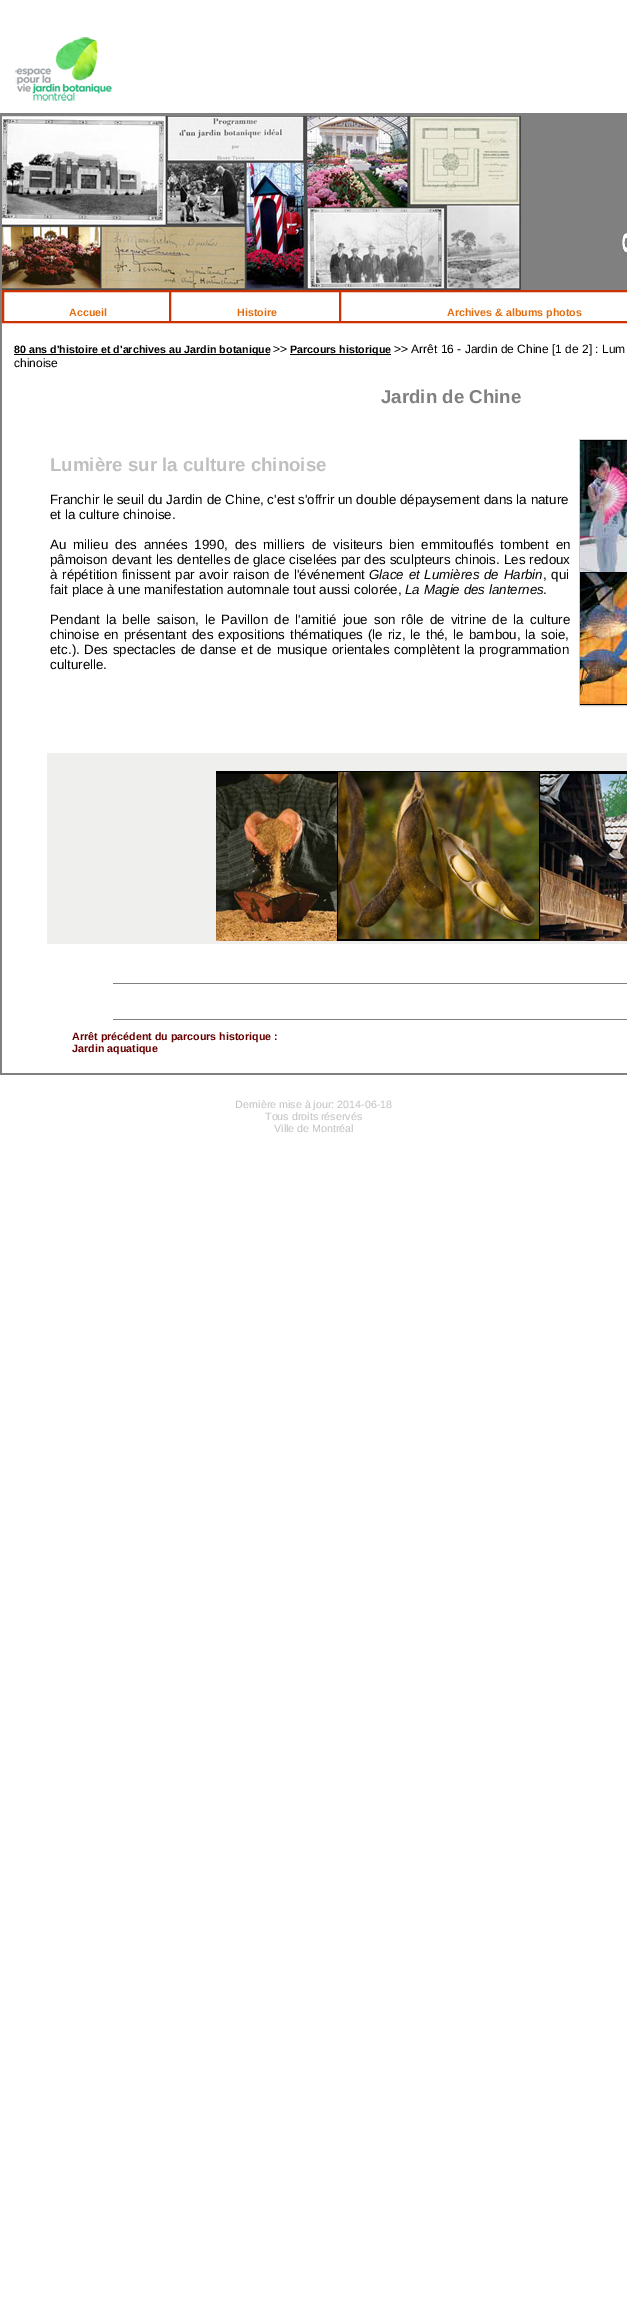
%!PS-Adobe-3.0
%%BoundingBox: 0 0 627 2297
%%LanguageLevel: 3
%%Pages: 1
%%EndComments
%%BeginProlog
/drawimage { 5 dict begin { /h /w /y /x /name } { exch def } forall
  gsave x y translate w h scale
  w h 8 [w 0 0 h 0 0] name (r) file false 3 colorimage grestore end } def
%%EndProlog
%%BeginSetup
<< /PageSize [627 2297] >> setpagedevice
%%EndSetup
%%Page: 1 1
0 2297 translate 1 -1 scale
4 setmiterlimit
1 setgray
0 0 627 2297 rectfill
(images/1.raw) 15 37 97 64 drawimage
0.502 setgray
0 113 627 962 rectfill
(images/2.raw) 2 115 625 175 drawimage
1 setgray
2 292 625 781 rectfill
0.8 0.2 0 setrgbcolor
2.5 290.5 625 32 rectstroke
3.5 291.5 166 30 rectstroke
170.5 291.5 169 30 rectstroke
340.5 291.5 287 30 rectstroke
0 setgray
14 354 256 1 rectfill
290 354 101 1 rectfill
0.8 setgray
579.5 439.5 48 266 rectstroke
(images/3.raw) 580 440 47 265 drawimage
0.937 0.937 0.933 setrgbcolor
47 753 580 191 rectfill
(images/4.raw) 216 771 411 170 drawimage
0.502 setgray
113 983 514 1 rectfill
113 1019 514 1 rectfill
/LiberationSans-Bold [10.7 0 0 -10.7 0 0] selectfont
0.882 0.431 0.063 setrgbcolor
69 316 moveto (Accueil) show
237 316 moveto (Histoire) show
447 316 moveto (Archives & albums photos) show
0 setgray
14 353 moveto (80 ans d'histoire et d'archives au Jardin botanique) show
/LiberationSans-Regular [12 0 0 -12 0 0] selectfont
273 353 moveto (>>) show
/LiberationSans-Bold [10.7 0 0 -10.7 0 0] selectfont
290 353 moveto (Parcours historique) show
/LiberationSans-Regular [12 0 0 -12 0 0] selectfont
394 353 moveto (>> Arrêt 16 - Jardin de Chine [1 de 2] : Lum) show
14 367 moveto (chinoise) show
/LiberationSans-Bold [18.7 0 0 -18.7 0 0] selectfont
0.502 setgray
381 403 moveto (Jardin de Chine) show
0.753 setgray
50 471 moveto (Lumière sur la culture chinoise) show
/LiberationSans-Regular [13.35 0 0 -13.35 0 0] selectfont
0 setgray
50 504 moveto (Franchir le seuil du Jardin de Chine, c'est s'offrir un double dépaysement dans la nature) show
50 519 moveto (et la culture chinoise.) show
50 549 moveto 3.25 0 32 (Au milieu des années 1990, des milliers de visiteurs bien emmitouflés tombent en) widthshow
50 564 moveto 0.25 0 32 (pâmoison devant les dentelles de glace ciselées par des sculpteurs chinois. Les redoux) widthshow
50 579 moveto 1 0 32 (à répétition finissent par avoir raison de l'événement) widthshow
/LiberationSans-Italic [13.35 0 0 -13.35 0 0] selectfont
369 579 moveto 1 0 32 (Glace et Lumières de Harbin) widthshow
/LiberationSans-Regular [13.35 0 0 -13.35 0 0] selectfont
543 579 moveto 1 0 32 (, qui) widthshow
50 594 moveto (fait place à une manifestation automnale tout aussi colorée,) show
/LiberationSans-Italic [13.35 0 0 -13.35 0 0] selectfont
405 594 moveto (La Magie des lanternes) show
/LiberationSans-Regular [13.35 0 0 -13.35 0 0] selectfont
543 594 moveto (.) show
50 624 moveto 2.4 0 32 (Pendant la belle saison, le Pavillon de l'amitié joue son rôle de vitrine de la culture) widthshow
50 639 moveto 1.3 0 32 (chinoise en présentant des expositions thématiques \(le riz, le thé, le bambou, la soie,) widthshow
50 654 moveto 1 0 32 (etc.\). Des spectacles de danse et de musique orientales complètent la programmation) widthshow
50 669 moveto (culturelle.) show
/LiberationSans-Bold [10.7 0 0 -10.7 0 0] selectfont
0.4 0 0 setrgbcolor
72 1040 moveto (Arrêt précédent du parcours historique :) show
72 1052 moveto (Jardin aquatique) show
/LiberationSans-Regular [10.7 0 0 -10.7 0 0] selectfont
0.753 setgray
235 1108 moveto (Dernière mise à jour: 2014-06-18) show
265 1120 moveto (Tous droits réservés) show
274 1132 moveto (Ville de Montréal) show
showpage
%%EOF
